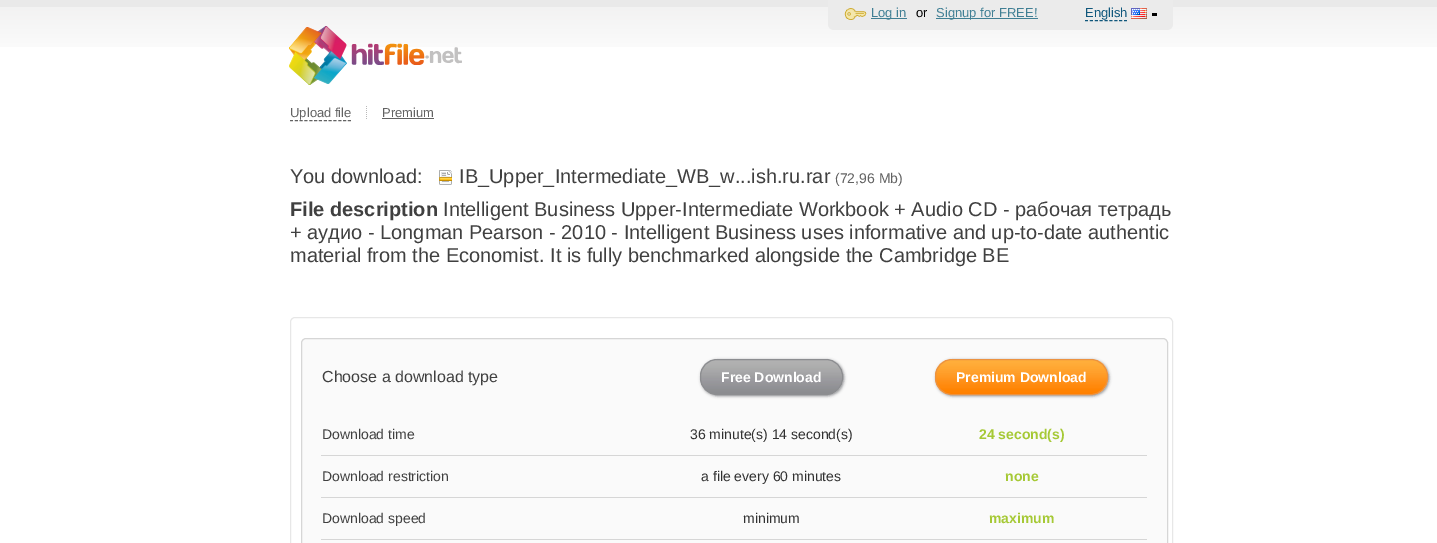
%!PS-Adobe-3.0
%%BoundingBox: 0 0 1437 543
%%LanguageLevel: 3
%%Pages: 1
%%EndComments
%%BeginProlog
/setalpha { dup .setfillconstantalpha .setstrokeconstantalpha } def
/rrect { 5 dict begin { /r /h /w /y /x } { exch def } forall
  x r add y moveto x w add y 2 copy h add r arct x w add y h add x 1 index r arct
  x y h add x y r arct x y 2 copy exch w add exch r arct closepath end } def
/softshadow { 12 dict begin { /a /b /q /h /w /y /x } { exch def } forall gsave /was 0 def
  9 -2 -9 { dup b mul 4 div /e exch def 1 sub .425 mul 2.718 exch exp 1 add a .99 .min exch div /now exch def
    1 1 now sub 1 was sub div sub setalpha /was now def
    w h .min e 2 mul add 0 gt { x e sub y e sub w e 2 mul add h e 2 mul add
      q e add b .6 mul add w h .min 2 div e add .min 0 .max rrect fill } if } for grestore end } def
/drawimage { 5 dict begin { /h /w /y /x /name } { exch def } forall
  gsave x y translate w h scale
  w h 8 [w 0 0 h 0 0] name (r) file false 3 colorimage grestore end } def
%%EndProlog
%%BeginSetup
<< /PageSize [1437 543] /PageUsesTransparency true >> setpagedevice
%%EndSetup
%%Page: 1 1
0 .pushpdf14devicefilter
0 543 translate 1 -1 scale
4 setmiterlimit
1 setgray
0 0 1437 543 rectfill
(images/1.raw) 0 0 1437 47 drawimage
0.922 setgray
newpath 828 0 moveto 1173 0 lineto 1173 24 lineto 1173 27.5 1170.5 30 1167 30 curveto 834 30 lineto 830.5 30 828 27.5 828 24 curveto closepath fill
(images/2.raw) 844 8 23 12 drawimage
0.251 0.498 0.58 setrgbcolor
871 18 36 1 rectfill
936 18 102 1 rectfill
0.063 0.341 0.486 setrgbcolor
[3 1.88] 0 setdash
newpath 1085 20.5 moveto 1127 20.5 lineto stroke
(images/3.raw) 1131 8 16 11 drawimage
0 setgray
1152 13 5 3 rectfill
(images/4.raw) 289 26 173 59 drawimage
0.384 setgray
[3 1.83] 0 setdash
newpath 290 120.5 moveto 351 120.5 lineto stroke
(images/5.raw) 366 106 1 13 drawimage
382 118 52 1 rectfill
(images/6.raw) 439 170 13 15 drawimage
0.906 setgray
[] 0 setdash
290.5 317.5 882 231 4.5 rrect stroke
0.98 setgray
301.5 338.5 866 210 4.5 rrect gsave fill grestore
0.839 setgray
stroke
0.553 0.557 0.569 setrgbcolor
701 360 143 36 17 1.5 1 softshadow
(images/7.raw) 700 360 143 34 drawimage
0.549 0.553 0.565 setrgbcolor
700.5 359.5 142 35 16.5 rrect stroke
0.553 0.557 0.569 setrgbcolor
936 360 173 36 17 1.5 1 softshadow
(images/8.raw) 935 360 173 34 drawimage
0.922 0.573 0.255 setrgbcolor
935.5 359.5 172 35 16.5 rrect stroke
0.839 setgray
321 455 826 1 rectfill
321 497 826 1 rectfill
321 539 826 1 rectfill
/LiberationSans-Regular [13 0 0 -13 0 0] selectfont
0.251 0.498 0.58 setrgbcolor
871 17 moveto (Log in) show
0 setgray
916 17 moveto (or) show
0.251 0.498 0.58 setrgbcolor
936 17 moveto (Signup for FREE!) show
0.063 0.341 0.486 setrgbcolor
1085 17 moveto (English) show
0.384 setgray
290 117 moveto (Upload file) show
382 117 moveto (Premium) show
/LiberationSans-Regular [20 0 0 -20 0 0] selectfont
0.251 setgray
290 183 moveto (You download:) show
459 183 moveto (IB_Upper_Intermediate_WB_w...ish.ru.rar) show
/LiberationSans-Regular [14 0 0 -14 0 0] selectfont
0.384 setgray
835 183 moveto (\(72,96 Mb\)) show
/LiberationSans-Bold [20 0 0 -20 0 0] selectfont
0.251 setgray
290 216 moveto (File description) show
/LiberationSans-Regular [20 0 0 -20 0 0] selectfont
443 216 moveto (Intelligent Business Upper-Intermediate Workbook + Audio CD - рабочая тетрадь) show
290 239 moveto (+ аудио - Longman Pearson - 2010 - Intelligent Business uses informative and up-to-date authentic) show
290 262 moveto (material from the Economist. It is fully benchmarked alongside the Cambridge BE) show
/LiberationSans-Regular [16 0 0 -16 0 0] selectfont
322 382 moveto (Choose a download type) show
/LiberationSans-Bold [14 0 0 -14 0 0] selectfont
1 setgray
721 382 moveto (Free Download) show
956 382 moveto (Premium Download) show
/LiberationSans-Regular [14 0 0 -14 0 0] selectfont
0.251 setgray
322 439 moveto (Download time) show
0.192 setgray
690 439 moveto (36 minute\(s\) 14 second\(s\)) show
/LiberationSans-Bold [14 0 0 -14 0 0] selectfont
0.651 0.788 0.212 setrgbcolor
979 439 moveto (24 second\(s\)) show
/LiberationSans-Regular [14 0 0 -14 0 0] selectfont
0.251 setgray
322 481 moveto (Download restriction) show
0.192 setgray
701 481 moveto (a file every 60 minutes) show
/LiberationSans-Bold [14 0 0 -14 0 0] selectfont
0.651 0.788 0.212 setrgbcolor
1005 481 moveto (none) show
/LiberationSans-Regular [14 0 0 -14 0 0] selectfont
0.251 setgray
322 523 moveto (Download speed) show
0.192 setgray
743 523 moveto (minimum) show
/LiberationSans-Bold [14 0 0 -14 0 0] selectfont
0.651 0.788 0.212 setrgbcolor
989 523 moveto (maximum) show
.poppdf14devicefilter showpage
%%EOF
